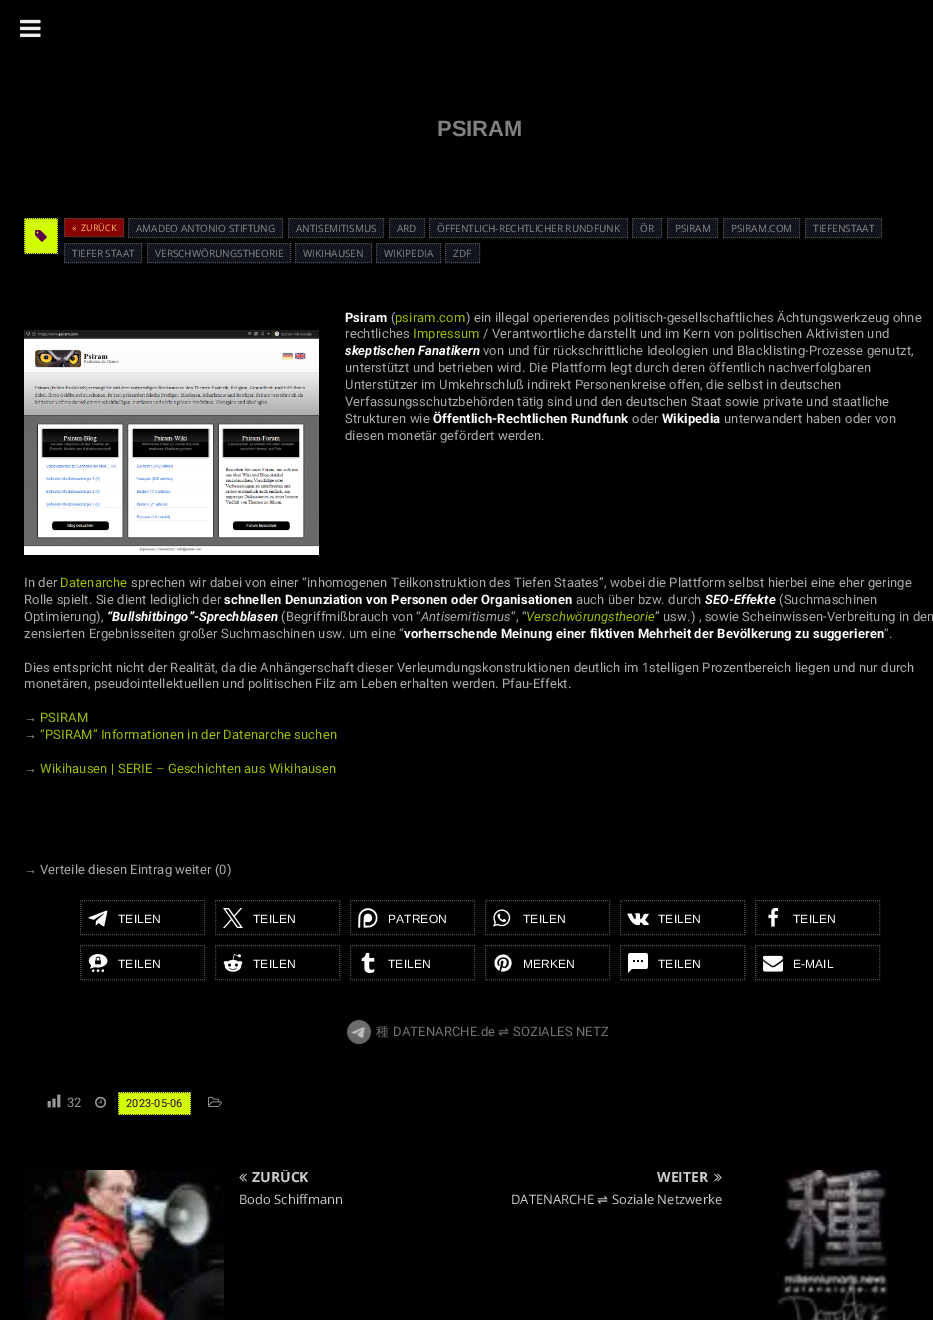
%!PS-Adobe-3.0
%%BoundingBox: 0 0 933 1320
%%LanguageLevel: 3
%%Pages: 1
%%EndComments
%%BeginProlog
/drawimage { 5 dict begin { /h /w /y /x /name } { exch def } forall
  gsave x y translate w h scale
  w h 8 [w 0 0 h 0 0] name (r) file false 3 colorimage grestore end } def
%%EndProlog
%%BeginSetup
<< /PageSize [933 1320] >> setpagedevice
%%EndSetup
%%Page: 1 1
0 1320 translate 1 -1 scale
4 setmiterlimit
0 setgray
0 0 933 1320 rectfill
(images/1.raw) 20 19 21 18 drawimage
0.824 1 0 setrgbcolor
24 218 34 36 rectfill
0.267 setgray
[1 1] 0 setdash
newpath 24 218.5 moveto 58 218.5 lineto 57.5 218 moveto 57.5 254 lineto 24 253.5 moveto 58 253.5 lineto 24.5 218 moveto 24.5 254 lineto stroke
(images/2.raw) 35 230 12 12 drawimage
0.533 0 0 setrgbcolor
64 218 60 19 rectfill
0.302 setgray
newpath 64 218.5 moveto 124 218.5 lineto 123.5 218 moveto 123.5 237 lineto 64 236.5 moveto 124 236.5 lineto 64.5 218 moveto 64.5 237 lineto stroke
0.067 0.082 0.118 setrgbcolor
128 218 155 20 rectfill
0.302 setgray
newpath 128 218.5 moveto 283 218.5 lineto stroke
newpath 282.5 218 moveto 282.5 238 lineto stroke
newpath 128 237.5 moveto 283 237.5 lineto stroke
newpath 128.5 218 moveto 128.5 238 lineto stroke
0.067 0.082 0.118 setrgbcolor
288 218 96 20 rectfill
0.302 setgray
newpath 288 218.5 moveto 384 218.5 lineto stroke
newpath 383.5 218 moveto 383.5 238 lineto stroke
newpath 288 237.5 moveto 384 237.5 lineto stroke
newpath 288.5 218 moveto 288.5 238 lineto stroke
0.067 0.082 0.118 setrgbcolor
389 218 36 20 rectfill
0.302 setgray
newpath 389 218.5 moveto 425 218.5 lineto 424.5 218 moveto 424.5 238 lineto 389 237.5 moveto 425 237.5 lineto 389.5 218 moveto 389.5 238 lineto stroke
0.067 0.082 0.118 setrgbcolor
429 218 199 20 rectfill
0.302 setgray
newpath 429 218.5 moveto 628 218.5 lineto stroke
newpath 627.5 218 moveto 627.5 238 lineto stroke
newpath 429 237.5 moveto 628 237.5 lineto stroke
newpath 429.5 218 moveto 429.5 238 lineto stroke
0.067 0.082 0.118 setrgbcolor
632 218 30 20 rectfill
0.302 setgray
newpath 632 218.5 moveto 662 218.5 lineto 661.5 218 moveto 661.5 238 lineto 632 237.5 moveto 662 237.5 lineto 632.5 218 moveto 632.5 238 lineto stroke
0.067 0.082 0.118 setrgbcolor
667 218 51 20 rectfill
0.302 setgray
newpath 667 218.5 moveto 718 218.5 lineto 717.5 218 moveto 717.5 238 lineto 667 237.5 moveto 718 237.5 lineto 667.5 218 moveto 667.5 238 lineto stroke
0.067 0.082 0.118 setrgbcolor
723 218 77 20 rectfill
0.302 setgray
newpath 723 218.5 moveto 800 218.5 lineto stroke
newpath 799.5 218 moveto 799.5 238 lineto stroke
newpath 723 237.5 moveto 800 237.5 lineto stroke
newpath 723.5 218 moveto 723.5 238 lineto stroke
0.067 0.082 0.118 setrgbcolor
805 218 77 20 rectfill
0.302 setgray
newpath 805 218.5 moveto 882 218.5 lineto stroke
newpath 881.5 218 moveto 881.5 238 lineto stroke
newpath 805 237.5 moveto 882 237.5 lineto stroke
newpath 805.5 218 moveto 805.5 238 lineto stroke
0.067 0.082 0.118 setrgbcolor
64 243 78 20 rectfill
0.302 setgray
newpath 64 243.5 moveto 142 243.5 lineto stroke
newpath 141.5 243 moveto 141.5 263 lineto stroke
newpath 64 262.5 moveto 142 262.5 lineto stroke
newpath 64.5 243 moveto 64.5 263 lineto stroke
0.067 0.082 0.118 setrgbcolor
147 243 144 20 rectfill
0.302 setgray
newpath 147 243.5 moveto 291 243.5 lineto stroke
newpath 290.5 243 moveto 290.5 263 lineto stroke
newpath 147 262.5 moveto 291 262.5 lineto stroke
newpath 147.5 243 moveto 147.5 263 lineto stroke
0.067 0.082 0.118 setrgbcolor
295 243 77 20 rectfill
0.302 setgray
newpath 295 243.5 moveto 372 243.5 lineto stroke
newpath 371.5 243 moveto 371.5 263 lineto stroke
newpath 295 262.5 moveto 372 262.5 lineto stroke
newpath 295.5 243 moveto 295.5 263 lineto stroke
0.067 0.082 0.118 setrgbcolor
376 243 65 20 rectfill
0.302 setgray
newpath 376 243.5 moveto 441 243.5 lineto stroke
newpath 440.5 243 moveto 440.5 263 lineto stroke
newpath 376 262.5 moveto 441 262.5 lineto stroke
newpath 376.5 243 moveto 376.5 263 lineto stroke
0.067 0.082 0.118 setrgbcolor
445 243 35 20 rectfill
0.302 setgray
newpath 445 243.5 moveto 480 243.5 lineto 479.5 243 moveto 479.5 263 lineto 445 262.5 moveto 480 262.5 lineto 445.5 243 moveto 445.5 263 lineto stroke
(images/3.raw) 24 330 295 225 drawimage
newpath 80 900.5 moveto 205 900.5 lineto stroke
newpath 204.5 900 moveto 204.5 935 lineto stroke
newpath 80 934.5 moveto 205 934.5 lineto stroke
newpath 80.5 900 moveto 80.5 935 lineto stroke
(images/4.raw) 88 910 20 17 drawimage
newpath 215 900.5 moveto 340 900.5 lineto stroke
newpath 339.5 900 moveto 339.5 935 lineto stroke
newpath 215 934.5 moveto 340 934.5 lineto stroke
newpath 215.5 900 moveto 215.5 935 lineto stroke
(images/5.raw) 223 908 20 20 drawimage
newpath 350 900.5 moveto 475 900.5 lineto stroke
newpath 474.5 900 moveto 474.5 935 lineto stroke
newpath 350 934.5 moveto 475 934.5 lineto stroke
newpath 350.5 900 moveto 350.5 935 lineto stroke
(images/6.raw) 358 908 20 20 drawimage
newpath 485 900.5 moveto 610 900.5 lineto stroke
newpath 609.5 900 moveto 609.5 935 lineto stroke
newpath 485 934.5 moveto 610 934.5 lineto stroke
newpath 485.5 900 moveto 485.5 935 lineto stroke
(images/7.raw) 493 909 18 18 drawimage
newpath 620 900.5 moveto 745 900.5 lineto stroke
newpath 744.5 900 moveto 744.5 935 lineto stroke
newpath 620 934.5 moveto 745 934.5 lineto stroke
newpath 620.5 900 moveto 620.5 935 lineto stroke
(images/8.raw) 627 913 22 13 drawimage
newpath 755 900.5 moveto 880 900.5 lineto stroke
newpath 879.5 900 moveto 879.5 935 lineto stroke
newpath 755 934.5 moveto 880 934.5 lineto stroke
newpath 755.5 900 moveto 755.5 935 lineto stroke
(images/9.raw) 768 907 11 20 drawimage
newpath 80 945.5 moveto 205 945.5 lineto stroke
newpath 204.5 945 moveto 204.5 980 lineto stroke
newpath 80 979.5 moveto 205 979.5 lineto stroke
newpath 80.5 945 moveto 80.5 980 lineto stroke
(images/10.raw) 88 954 20 18 drawimage
newpath 215 945.5 moveto 340 945.5 lineto stroke
newpath 339.5 945 moveto 339.5 980 lineto stroke
newpath 215 979.5 moveto 340 979.5 lineto stroke
newpath 215.5 945 moveto 215.5 980 lineto stroke
(images/11.raw) 223 954 20 18 drawimage
newpath 350 945.5 moveto 475 945.5 lineto stroke
newpath 474.5 945 moveto 474.5 980 lineto stroke
newpath 350 979.5 moveto 475 979.5 lineto stroke
newpath 350.5 945 moveto 350.5 980 lineto stroke
(images/12.raw) 361 952 14 21 drawimage
newpath 485 945.5 moveto 610 945.5 lineto stroke
newpath 609.5 945 moveto 609.5 980 lineto stroke
newpath 485 979.5 moveto 610 979.5 lineto stroke
newpath 485.5 945 moveto 485.5 980 lineto stroke
(images/13.raw) 494 954 18 18 drawimage
newpath 620 945.5 moveto 745 945.5 lineto stroke
newpath 744.5 945 moveto 744.5 980 lineto stroke
newpath 620 979.5 moveto 745 979.5 lineto stroke
newpath 620.5 945 moveto 620.5 980 lineto stroke
(images/14.raw) 628 953 20 20 drawimage
newpath 755 945.5 moveto 880 945.5 lineto stroke
newpath 879.5 945 moveto 879.5 980 lineto stroke
newpath 755 979.5 moveto 880 979.5 lineto stroke
newpath 755.5 945 moveto 755.5 980 lineto stroke
(images/15.raw) 762 955 21 17 drawimage
(images/16.raw) 347 1020 24 24 drawimage
(images/17.raw) 47 1094 14 14 drawimage
(images/18.raw) 95 1096 12 12 drawimage
0.824 1 0 setrgbcolor
118 1092 73 23 rectfill
0.302 setgray
newpath 118 1092.5 moveto 191 1092.5 lineto stroke
newpath 190.5 1092 moveto 190.5 1115 lineto stroke
newpath 118 1114.5 moveto 191 1114.5 lineto stroke
newpath 118.5 1092 moveto 118.5 1115 lineto stroke
(images/19.raw) 208 1096 14 11 drawimage
(images/20.raw) 24 1170 200 150 drawimage
(images/21.raw) 239 1173 8 9 drawimage
(images/22.raw) 714 1173 8 9 drawimage
(images/23.raw) 777 1170 112 150 drawimage
/LiberationSans-Bold [22 0 0 -22 0 0] selectfont
0.502 setgray
437 136 moveto (PSIRAM) show
/OpenSans-Regular [9 0 0 -9 0 0] selectfont
1 0.725 0.384 setrgbcolor
72 231 moveto («  ZURÜCK) show
/OpenSans-Regular [10 0 0 -10 0 0] selectfont
0.533 setgray
136 232 moveto (AMADEO ANTONIO STIFTUNG) show
296 232 moveto (ANTISEMITISMUS) show
397 232 moveto (ARD) show
437 232 moveto (ÖFFENTLICH-RECHTLICHER RUNDFUNK) show
640 232 moveto (ÖR) show
675 232 moveto (PSIRAM) show
731 232 moveto (PSIRAM.COM) show
813 232 moveto (TIEFENSTAAT) show
72 257 moveto (TIEFER STAAT) show
155 257 moveto (VERSCHWÖRUNGSTHEORIE) show
303 257 moveto (WIKIHAUSEN) show
384 257 moveto (WIKIPEDIA) show
453 257 moveto (ZDF) show
/Roboto-Bold [13 0 0 -13 0 0] selectfont
1 setgray
345 322 moveto 0.12 0 (Psiram) ashow
/Roboto-Regular [13 0 0 -13 0 0] selectfont
0.667 setgray
391 322 moveto 0.12 0 (\() ashow
0.608 0.737 0 setrgbcolor
395 322 moveto 0.12 0 (psiram.com) ashow
0.667 setgray
466 322 moveto 0.12 0 (\) ein illegal operierendes politisch-gesellschaftliches Ächtungswerkzeug ohne) ashow
345 338 moveto 0.12 0 (rechtliches) ashow
0.608 0.737 0 setrgbcolor
413 338 moveto 0.12 0 (Impressum) ashow
0.667 setgray
483 338 moveto 0.12 0 (/ Verantwortliche darstellt und im Kern von politischen Aktivisten und) ashow
/Roboto-BoldItalic [13 0 0 -13 0 0] selectfont
1 setgray
345 355 moveto 0.12 0 (skeptischen Fanatikern) ashow
/Roboto-Regular [13 0 0 -13 0 0] selectfont
0.667 setgray
483 355 moveto 0.12 0 (von und für rückschrittliche Ideologien und Blacklisting-Prozesse genutzt,) ashow
345 372 moveto 0.12 0 (unterstützt und betrieben wird. Die Plattform legt durch deren öffentlich nachverfolgbaren) ashow
345 389 moveto 0.12 0 (Unterstützer im Umkehrschluß indirekt Personenkreise offen, die selbst in deutschen) ashow
345 406 moveto 0.12 0 (Verfassungsschutzbehörden tätig sind und den deutschen Staat sowie private und staatliche) ashow
345 423 moveto 0.12 0 (Strukturen wie) ashow
/Roboto-Bold [13 0 0 -13 0 0] selectfont
1 setgray
433 423 moveto 0.12 0 (Öffentlich-Rechtlichen Rundfunk) ashow
/Roboto-Regular [13 0 0 -13 0 0] selectfont
0.667 setgray
632 423 moveto 0.12 0 (oder) ashow
/Roboto-Bold [13 0 0 -13 0 0] selectfont
1 setgray
662 423 moveto 0.12 0 (Wikipedia) ashow
/Roboto-Regular [13 0 0 -13 0 0] selectfont
0.667 setgray
724 423 moveto 0.12 0 (unterwandert haben oder von) ashow
345 440 moveto 0.12 0 (diesen monetär gefördert werden.) ashow
24 587 moveto 0.12 0 (In der) ashow
0.608 0.737 0 setrgbcolor
60 587 moveto 0.12 0 (Datenarche) ashow
0.667 setgray
131 587 moveto 0.12 0 (sprechen wir dabei von einer “inhomogenen Teilkonstruktion des Tiefen Staates”, wobei die Plattform selbst hierbei eine eher geringe) ashow
24 604 moveto 0.12 0 (Rolle spielt. Sie dient lediglich der) ashow
/Roboto-Bold [13 0 0 -13 0 0] selectfont
1 setgray
224 604 moveto 0.12 0 (schnellen Denunziation von Personen oder Organisationen) ashow
/Roboto-Regular [13 0 0 -13 0 0] selectfont
0.667 setgray
576 604 moveto 0.12 0 (auch über bzw. durch) ashow
/Roboto-BoldItalic [13 0 0 -13 0 0] selectfont
1 setgray
705 604 moveto 0.12 0 (SEO-Effekte) ashow
/Roboto-Regular [13 0 0 -13 0 0] selectfont
0.667 setgray
779 604 moveto 0.12 0 (\(Suchmaschinen) ashow
24 621 moveto 0.12 0 (Optimierung\),) ashow
/Roboto-BoldItalic [13 0 0 -13 0 0] selectfont
1 setgray
107 621 moveto 0.12 0 (“Bullshitbingo”-Sprechblasen) ashow
/Roboto-Regular [13 0 0 -13 0 0] selectfont
0.667 setgray
281 621 moveto 0.12 0 (\(Begriffmißbrauch von “) ashow
/Roboto-Italic [13 0 0 -13 0 0] selectfont
421 621 moveto 0.12 0 (Antisemitismus) ashow
/Roboto-Regular [13 0 0 -13 0 0] selectfont
511 621 moveto 0.12 0 (“, “) ashow
/Roboto-Italic [13 0 0 -13 0 0] selectfont
0.608 0.737 0 setrgbcolor
526 621 moveto 0.12 0 (Verschwörungstheorie) ashow
/Roboto-Regular [13 0 0 -13 0 0] selectfont
0.667 setgray
655 621 moveto 0.12 0 (” usw.\) , sowie Scheinwissen-Verbreitung in den) ashow
24 638 moveto 0.12 0 (zensierten Ergebnisseiten großer Suchmaschinen usw. um eine “) ashow
/Roboto-Bold [13 0 0 -13 0 0] selectfont
1 setgray
404 638 moveto 0.12 0 (vorherrschende Meinung einer fiktiven Mehrheit der Bevölkerung zu suggerieren) ashow
/Roboto-Regular [13 0 0 -13 0 0] selectfont
0.667 setgray
884 638 moveto 0.12 0 (“.) ashow
24 672 moveto 0.12 0 (Dies entspricht nicht der Realität, da die Anhängerschaft dieser Verleumdungskonstruktionen deutlich im 1stelligen Prozentbereich liegen und nur durch) ashow
24 688 moveto 0.12 0 (monetären, pseudointellektuellen und politischen Filz am Leben erhalten werden. Pfau-Effekt.) ashow
/LiberationSans-Regular [13 0 0 -13 0 0] selectfont
24 722 moveto 0.12 0 (→) ashow
/Roboto-Regular [13 0 0 -13 0 0] selectfont
0.608 0.737 0 setrgbcolor
40 722 moveto 0.12 0 (PSIRAM) ashow
/LiberationSans-Regular [13 0 0 -13 0 0] selectfont
0.667 setgray
24 739 moveto 0.12 0 (→) ashow
/Roboto-Regular [13 0 0 -13 0 0] selectfont
0.608 0.737 0 setrgbcolor
40 739 moveto 0.12 0 (“PSIRAM” Informationen in der Datenarche suchen) ashow
/LiberationSans-Regular [13 0 0 -13 0 0] selectfont
0.667 setgray
24 773 moveto 0.12 0 (→) ashow
/Roboto-Regular [13 0 0 -13 0 0] selectfont
0.608 0.737 0 setrgbcolor
40 773 moveto 0.12 0 (Wikihausen | SERIE – Geschichten aus Wikihausen) ashow
/LiberationSans-Regular [13 0 0 -13 0 0] selectfont
0.667 setgray
24 874 moveto 0.12 0 (→) ashow
/Roboto-Regular [13 0 0 -13 0 0] selectfont
40 874 moveto 0.12 0 (Verteile diesen Eintrag weiter \(0\)) ashow
/LiberationSans-Regular [12 0 0 -12 0 0] selectfont
1 setgray
118 923 moveto 0.12 0 (TEILEN) ashow
253 923 moveto 0.12 0 (TEILEN) ashow
388 923 moveto 0.12 0 (PATREON) ashow
523 923 moveto 0.12 0 (TEILEN) ashow
658 923 moveto 0.12 0 (TEILEN) ashow
793 923 moveto 0.12 0 (TEILEN) ashow
118 968 moveto 0.12 0 (TEILEN) ashow
253 968 moveto 0.12 0 (TEILEN) ashow
388 968 moveto 0.12 0 (TEILEN) ashow
523 968 moveto 0.12 0 (MERKEN) ashow
658 968 moveto 0.12 0 (TEILEN) ashow
793 968 moveto 0.12 0 (E-MAIL) ashow
/WenQuanYiZenHei-Medium [13 0 0 -13 0 0] selectfont
0.451 setgray
376 1036 moveto 0.12 0 (種) ashow
/Roboto-Regular [13 0 0 -13 0 0] selectfont
393 1036 moveto 0.12 0 (DATENARCHE.de) ashow
/DejaVuSans-Regular [13 0 0 -13 0 0] selectfont
498 1036 moveto 0.12 0 (⇌) ashow
/Roboto-Regular [13 0 0 -13 0 0] selectfont
513 1036 moveto 0.12 0 (SOZIALES NETZ) ashow
0.592 setgray
67 1107 moveto 0.12 0 (32) ashow
/Roboto-Regular [11 0 0 -11 0 0] selectfont
0.184 0.004 0.243 setrgbcolor
126 1107 moveto 0.12 0 (2023-05-06) ashow
gsave
239 1170 230 14 rectclip
/OpenSans-Bold [14 0 0 -14 0 0] selectfont
0.8 setgray
252 1182 moveto (ZURÜCK) show
grestore
/OpenSans-Regular [13 0 0 -13 0 0] selectfont
0.8 setgray
239 1204 moveto (Bodo Schiffmann) show
/OpenSans-Bold [14 0 0 -14 0 0] selectfont
657 1182 moveto (WEITER) show
/OpenSans-Regular [13 0 0 -13 0 0] selectfont
511 1204 moveto (DATENARCHE) show
/DejaVuSans-Regular [13 0 0 -13 0 0] selectfont
597 1204 moveto (⇌) show
/OpenSans-Regular [13 0 0 -13 0 0] selectfont
612 1204 moveto (Soziale Netzwerke) show
showpage
%%EOF
